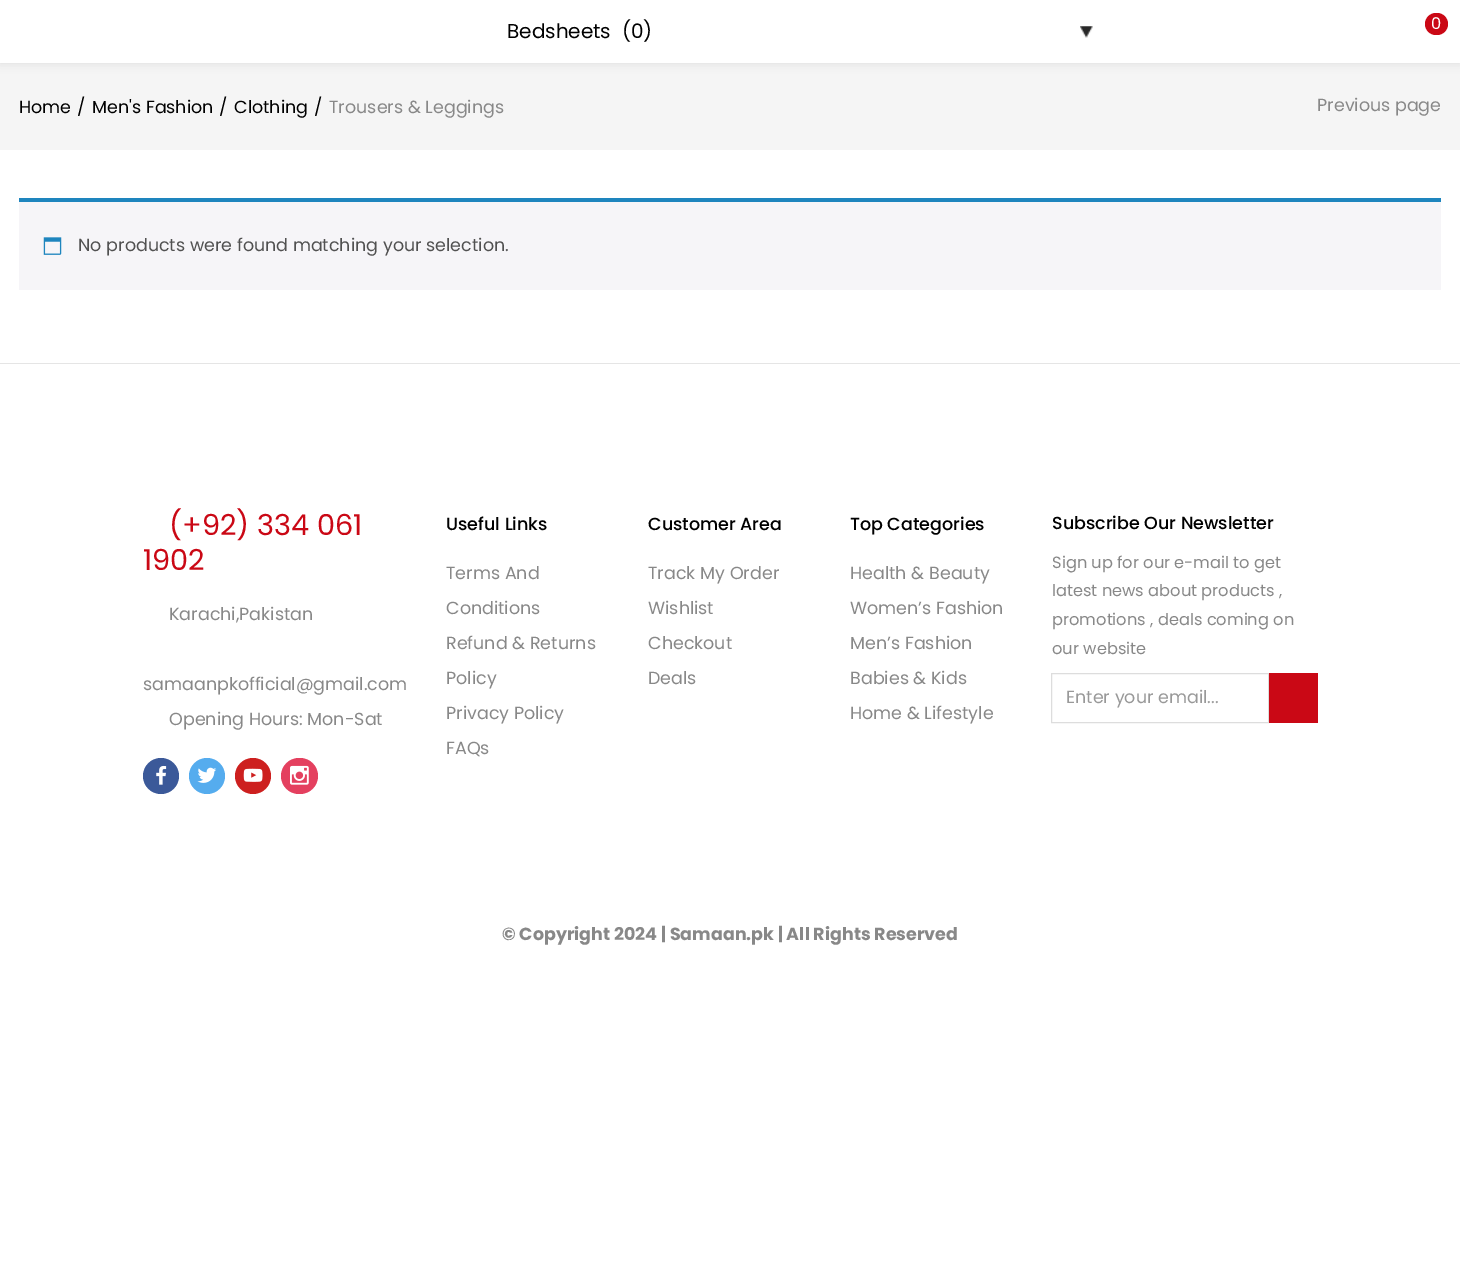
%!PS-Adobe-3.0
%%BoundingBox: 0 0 1460 1280
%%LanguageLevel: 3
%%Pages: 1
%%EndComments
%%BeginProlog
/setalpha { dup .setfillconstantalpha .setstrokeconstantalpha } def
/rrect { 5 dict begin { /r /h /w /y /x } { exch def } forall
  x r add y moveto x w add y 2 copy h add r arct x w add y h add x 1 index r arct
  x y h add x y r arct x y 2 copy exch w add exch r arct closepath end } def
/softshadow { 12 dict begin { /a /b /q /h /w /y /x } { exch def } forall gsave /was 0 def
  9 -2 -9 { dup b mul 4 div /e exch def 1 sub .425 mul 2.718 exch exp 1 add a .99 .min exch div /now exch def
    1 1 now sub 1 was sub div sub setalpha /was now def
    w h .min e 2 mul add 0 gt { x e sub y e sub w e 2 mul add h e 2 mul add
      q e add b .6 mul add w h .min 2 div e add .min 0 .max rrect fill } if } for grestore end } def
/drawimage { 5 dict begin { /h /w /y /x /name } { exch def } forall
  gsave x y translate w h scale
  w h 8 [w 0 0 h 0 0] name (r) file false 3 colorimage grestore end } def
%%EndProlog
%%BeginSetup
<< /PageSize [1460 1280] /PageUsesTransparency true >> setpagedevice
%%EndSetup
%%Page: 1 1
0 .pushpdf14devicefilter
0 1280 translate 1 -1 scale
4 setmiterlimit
1 setgray
0 0 1460 1280 rectfill
0.961 setgray
0 63 1460 87 rectfill
0 setgray
0 0 1460 63 0 5 0.1 softshadow
1 setgray
0 0 1460 63 rectfill
(images/1.raw) 1080 26 13 12 drawimage
0.792 0.031 0.082 setrgbcolor
1425 13 23 22 11 rrect fill
0.965 0.961 0.973 setrgbcolor
19 202 1422 88 rectfill
0.118 0.522 0.745 setrgbcolor
19 198 1422 4 rectfill
(images/2.raw) 43 237 19 18 drawimage
0.898 setgray
0 363 1460 1 rectfill
0.231 0.349 0.6 setrgbcolor
newpath 161 776 18 0 360 arc closepath fill
(images/3.raw) 156 765 11 20 drawimage
0.333 0.675 0.933 setrgbcolor
newpath 207 776 18 0 360 arc closepath fill
(images/4.raw) 197 767 20 16 drawimage
0.804 0.125 0.122 setrgbcolor
newpath 253 776 18 0 360 arc closepath fill
(images/5.raw) 243 768 20 14 drawimage
0.894 0.251 0.373 setrgbcolor
281 758 37 36 18 rrect fill
(images/6.raw) 290 765 19 20 drawimage
0.867 setgray
1051.5 673.5 217 49 rectstroke
0.792 0.031 0.082 setrgbcolor
1269 673 49 50 rectfill
/Poppins-Regular [20 0 0 -20 0 0] selectfont
0 setgray
507 38 moveto (Bedsheets  \(0\)) show
/Poppins-Regular [16.25 0 0 -16.25 0 0] selectfont
1 setgray
1431 29 moveto (0) show
/Poppins-Regular [17.5 0 0 -17.5 0 0] selectfont
0 setgray
19 113 moveto (Home) show
77 113 moveto (/) show
92 113 moveto (Men's Fashion) show
219 113 moveto (/) show
234 113 moveto (Clothing) show
314 113 moveto (/) show
0.533 setgray
329 113 moveto (Trousers & Leggings) show
1317 111 moveto (Previous page) show
0.318 setgray
78 251 moveto (No products were found matching your selection.) show
/Poppins-Regular [28.75 0 0 -28.75 0 0] selectfont
0.792 0.031 0.082 setrgbcolor
169 535 moveto (\(+92\) 334 061) show
143 570 moveto (1902) show
/Poppins-Regular [17.5 0 0 -17.5 0 0] selectfont
0.533 setgray
169 620 moveto (Karachi,Pakistan) show
143 690 moveto (samaanpkofficial@gmail.com) show
169 725 moveto (Opening Hours: Mon-Sat) show
/Poppins-Medium [17.5 0 0 -17.5 0 0] selectfont
0 setgray
446 530 moveto (Useful Links) show
/Poppins-Regular [17.5 0 0 -17.5 0 0] selectfont
0.533 setgray
446 579 moveto (Terms And) show
446 614 moveto (Conditions) show
446 649 moveto (Refund & Returns) show
446 684 moveto (Policy) show
446 719 moveto (Privacy Policy) show
446 754 moveto (FAQs) show
/Poppins-Medium [17.5 0 0 -17.5 0 0] selectfont
0 setgray
648 530 moveto (Customer Area) show
/Poppins-Regular [17.5 0 0 -17.5 0 0] selectfont
0.533 setgray
648 579 moveto (Track My Order) show
648 614 moveto (Wishlist) show
648 649 moveto (Checkout) show
648 684 moveto (Deals) show
/Poppins-Medium [17.5 0 0 -17.5 0 0] selectfont
0 setgray
850 530 moveto (Top Categories) show
/Poppins-Regular [17.5 0 0 -17.5 0 0] selectfont
0.533 setgray
850 579 moveto (Health & Beauty) show
850 614 moveto (Women’s Fashion) show
850 649 moveto (Men’s Fashion) show
850 684 moveto (Babies & Kids) show
850 719 moveto (Home & Lifestyle) show
/Poppins-Medium [17.5 0 0 -17.5 0 0] selectfont
0 setgray
1052 529 moveto (Subscribe Our Newsletter) show
/Poppins-Regular [16.25 0 0 -16.25 0 0] selectfont
0.533 setgray
1052 568 moveto (Sign up for our e-mail to get) show
1052 596 moveto (latest news about products ,) show
1052 625 moveto (promotions , deals coming on) show
1052 654 moveto (our website) show
/Poppins-Regular [17.5 0 0 -17.5 0 0] selectfont
0.6 setgray
1066 703 moveto (Enter your email...) show
/Poppins-Bold [17.5 0 0 -17.5 0 0] selectfont
0.533 setgray
502 940 moveto (© Copyright 2024 | Samaan.pk | All Rights Reserved) show
.poppdf14devicefilter showpage
%%EOF
